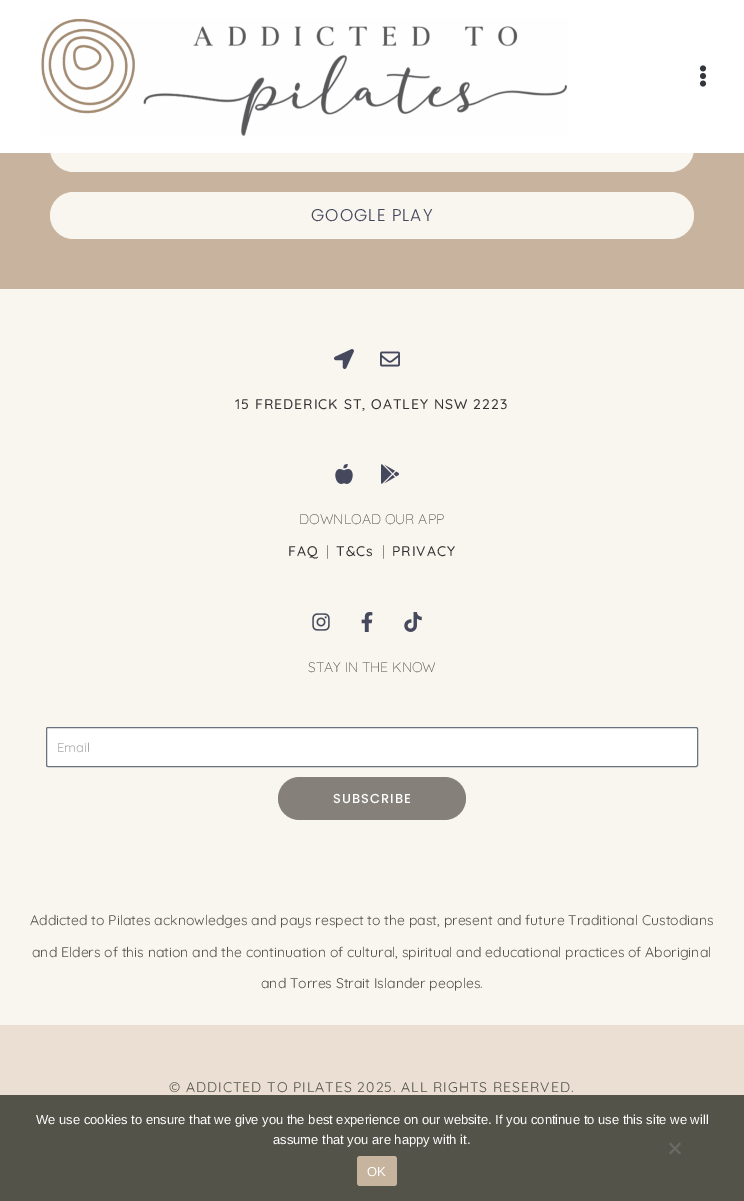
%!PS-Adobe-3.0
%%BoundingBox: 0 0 744 1201
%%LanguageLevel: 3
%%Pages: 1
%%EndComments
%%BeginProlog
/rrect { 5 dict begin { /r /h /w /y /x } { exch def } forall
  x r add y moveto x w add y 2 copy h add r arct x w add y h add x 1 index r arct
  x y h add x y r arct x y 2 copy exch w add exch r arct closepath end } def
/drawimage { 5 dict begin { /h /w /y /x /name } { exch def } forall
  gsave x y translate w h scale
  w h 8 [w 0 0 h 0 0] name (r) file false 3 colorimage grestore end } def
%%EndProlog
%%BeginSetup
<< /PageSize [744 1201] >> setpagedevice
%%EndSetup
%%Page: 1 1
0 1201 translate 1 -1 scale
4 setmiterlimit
0.784 0.706 0.62 setrgbcolor
0 0 744 1201 rectfill
0.976 0.965 0.941 setrgbcolor
50 125 644 47 23.5 rrect fill
1 setgray
0 0 744 153 rectfill
(images/1.raw) 41 18 527 119 drawimage
(images/2.raw) 699 65 8 22 drawimage
0.976 0.965 0.941 setrgbcolor
50 192 644 47 23.5 rrect fill
0 289 744 736 rectfill
(images/3.raw) 334 349 20 20 drawimage
(images/4.raw) 380 351 20 16 drawimage
(images/5.raw) 335 464 18 20 drawimage
(images/6.raw) 381 464 18 20 drawimage
(images/7.raw) 312 613 18 18 drawimage
(images/8.raw) 361 612 12 20 drawimage
(images/9.raw) 404 612 18 20 drawimage
1 setgray
46.5 727.5 651 39 1.5 rrect gsave fill grestore
0.412 0.447 0.49 setrgbcolor
stroke
0.525 0.502 0.478 setrgbcolor
278 777 188 43 21.5 rrect fill
0.922 0.875 0.827 setrgbcolor
0 1025 744 70 rectfill
0.329 0.325 0.29 setrgbcolor
0 1095 744 106 rectfill
0.416 0.416 0.396 setrgbcolor
newpath 679.5 1142.5 moveto 681 1144 lineto 670.5 1154.5 lineto 669 1153 lineto closepath fill
newpath 669 1144 moveto 670.5 1142.5 lineto 681 1153 lineto 679.5 1154.5 lineto closepath fill
0.78 0.706 0.62 setrgbcolor
357 1156 40 30 3 rrect fill
/Poppins-Light [17 0 0 -17 0 0] selectfont
0.275 0.286 0.365 setrgbcolor
311 221 moveto 1 0 (GOOGLE PLAY) ashow
/Quicksand-Medium [14 0 0 -14 0 0] selectfont
0.2 setgray
235 409 moveto 1 0 (15 FREDERICK ST, OATLEY NSW 2223) ashow
/Quicksand-Light [14 0 0 -14 0 0] selectfont
0.325 0.325 0.29 setrgbcolor
299 524 moveto (DOWNLOAD OUR APP) show
/Quicksand-Medium [14 0 0 -14 0 0] selectfont
0.2 setgray
288 556 moveto 1 0 (FAQ) ashow
/Quicksand-Light [14 0 0 -14 0 0] selectfont
326 556 moveto (|) show
/Quicksand-Medium [14 0 0 -14 0 0] selectfont
336 556 moveto 1 0 (T&Cs) ashow
/Quicksand-Light [14 0 0 -14 0 0] selectfont
382 556 moveto (|) show
/Quicksand-Medium [14 0 0 -14 0 0] selectfont
392 556 moveto 1 0 (PRIVACY) ashow
/Quicksand-Light [14 0 0 -14 0 0] selectfont
0.325 0.325 0.29 setrgbcolor
308 672 moveto (STAY IN THE KNOW) show
/Quicksand-Regular [13 0 0 -13 0 0] selectfont
0.655 0.655 0.647 setrgbcolor
57 752 moveto (Email) show
/Poppins-Medium [13 0 0 -13 0 0] selectfont
1 setgray
333 803 moveto 1 0 (SUBSCRIBE) ashow
/Quicksand-Regular [14 0 0 -14 0 0] selectfont
0.325 0.325 0.29 setrgbcolor
30 925 moveto (Addicted to Pilates acknowledges and pays respect to the past, present and future Traditional Custodians) show
32 957 moveto (and Elders of this nation and the continuation of cultural, spiritual and educational practices of Aboriginal) show
261 988 moveto (and Torres Strait Islander peoples.) show
169 1092 moveto 1 0 (© ADDICTED TO PILATES 2025. ALL RIGHTS RESERVED.) ashow
/LiberationSans-Regular [13 0 0 -13 0 0] selectfont
1 setgray
36 1124 moveto (We use cookies to ensure that we give you the best experience on our website. If you continue to use this site we will) show
273 1144 moveto (assume that you are happy with it.) show
367 1176 moveto (OK) show
showpage
%%EOF
